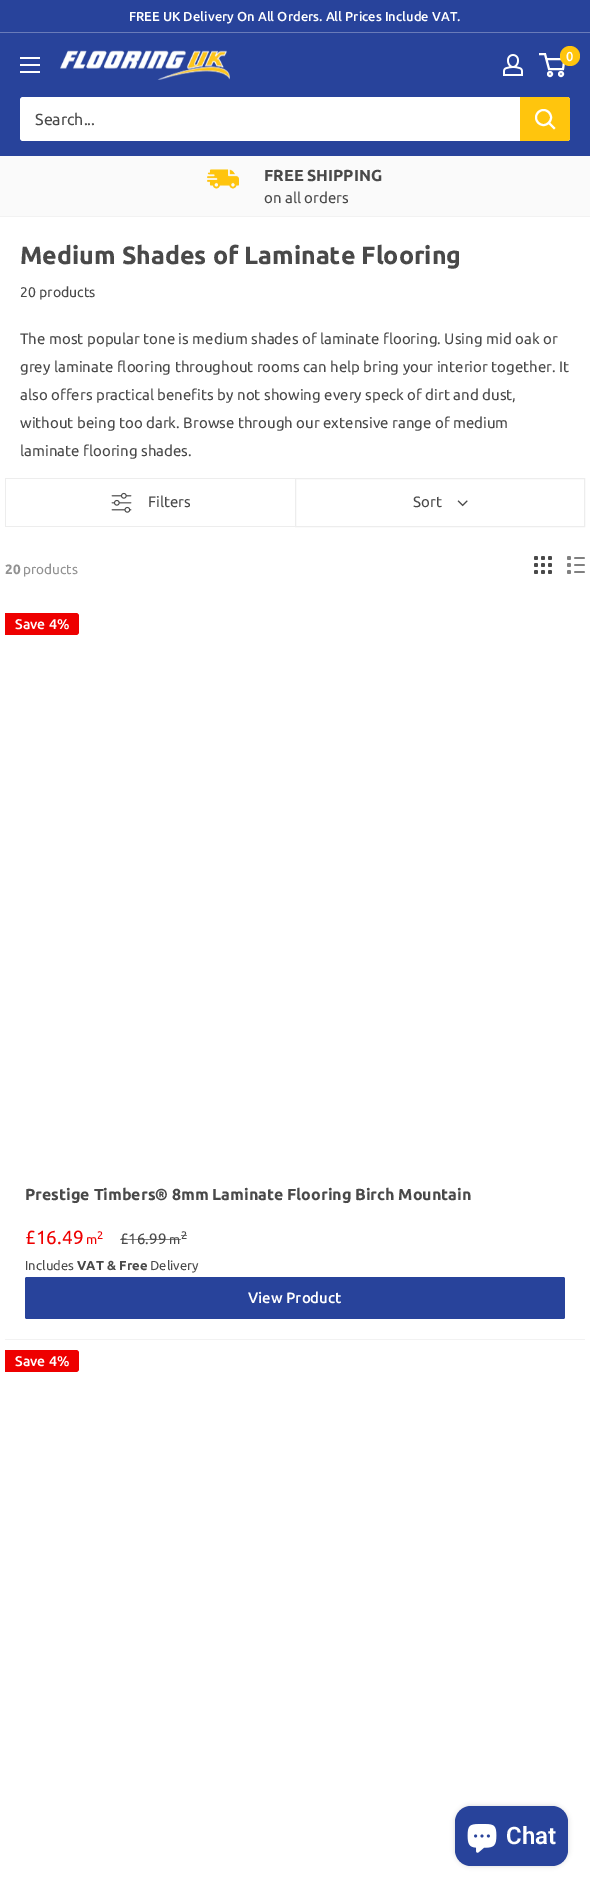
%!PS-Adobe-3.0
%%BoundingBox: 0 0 590 1887
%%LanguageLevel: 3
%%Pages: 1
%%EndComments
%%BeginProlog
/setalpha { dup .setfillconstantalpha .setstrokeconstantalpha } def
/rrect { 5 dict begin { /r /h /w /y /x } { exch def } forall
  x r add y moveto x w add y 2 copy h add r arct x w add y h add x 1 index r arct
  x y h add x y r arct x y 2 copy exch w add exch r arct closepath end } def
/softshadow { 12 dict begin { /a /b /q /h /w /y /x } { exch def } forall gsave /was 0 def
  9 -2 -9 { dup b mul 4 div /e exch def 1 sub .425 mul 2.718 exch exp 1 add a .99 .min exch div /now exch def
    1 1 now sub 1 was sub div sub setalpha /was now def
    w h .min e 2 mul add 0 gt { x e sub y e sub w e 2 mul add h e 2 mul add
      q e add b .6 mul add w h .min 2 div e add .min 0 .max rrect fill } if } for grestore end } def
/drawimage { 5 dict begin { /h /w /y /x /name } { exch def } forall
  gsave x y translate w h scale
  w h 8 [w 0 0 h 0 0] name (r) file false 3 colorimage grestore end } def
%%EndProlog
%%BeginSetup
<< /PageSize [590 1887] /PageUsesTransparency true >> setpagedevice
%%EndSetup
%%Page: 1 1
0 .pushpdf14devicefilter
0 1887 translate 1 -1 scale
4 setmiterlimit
0.98 setgray
0 0 590 1887 rectfill
0.157 0.263 0.608 setrgbcolor
0 0 590 32 rectfill
0.412 0.482 0.725 setrgbcolor
0 32 590 1 rectfill
0.157 0.263 0.608 setrgbcolor
0 33 590 123 rectfill
(images/1.raw) 20 57 20 16 drawimage
(images/2.raw) 60 50 170 30 drawimage
(images/3.raw) 503 54 20 22 drawimage
1 setgray
2 setlinewidth
newpath 550 74 2 0 360 arc closepath stroke
newpath 561 74 2 0 360 arc closepath stroke
newpath 546.5 59 moveto 564.5 59 lineto 563 69 lineto 549 69 lineto 545 54 lineto 539 54 lineto stroke
1 0.773 0.051 setrgbcolor
newpath 570 56 10 0 360 arc closepath fill
1 setgray
20 97 550 44 3 rrect fill
1 0.773 0.051 setrgbcolor
newpath 520 97 moveto 567 97 lineto 568.5 97 570 98.5 570 100 curveto 570 138 lineto 570 139.5 568.5 141 567 141 curveto 520 141 lineto closepath fill
1 setgray
2 setlinecap
newpath 554 128 moveto 549 123 lineto stroke
0 setlinecap
newpath 543.5 117.5 7.5 0 360 arc closepath stroke
(images/4.raw) 207 169 32 20 drawimage
0 217 590 1670 rectfill
0.949 setgray
0 216 590 1 rectfill
0.929 setgray
5 478 290 1 rectfill
5 526 290 1 rectfill
5 478 1 49 rectfill
(images/5.raw) 111 492 21 21 drawimage
1 setlinewidth
295.5 478.5 289 48 rectstroke
(images/6.raw) 457 500 11 7 drawimage
(images/7.raw) 534 556 18 18 drawimage
(images/8.raw) 567 556 18 18 drawimage
0.933 0 0 setrgbcolor
newpath 5 613 moveto 76 613 lineto 77.5 613 79 614.5 79 616 curveto 79 632 lineto 79 633.5 77.5 635 76 635 curveto 5 635 lineto closepath fill
0.157 0.263 0.608 setrgbcolor
25 1277 540 42 2 rrect fill
0.949 setgray
5 1339 580 1 rectfill
0.933 0 0 setrgbcolor
newpath 5 1350 moveto 76 1350 lineto 77.5 1350 79 1351.5 79 1353 curveto 79 1369 lineto 79 1370.5 77.5 1372 76 1372 curveto 5 1372 lineto closepath fill
0 setgray
455 1806 113 60 16 2.5 0.15 softshadow
0.157 0.263 0.608 setrgbcolor
455 1806 113 60 16 rrect fill
(images/9.raw) 467 1824 30 29 drawimage
/Ubuntu-Medium [13 0 0 -13 0 0] selectfont
1 setgray
129 21 moveto (FREE UK Delivery On All Orders. All Prices Include VAT.) show
566 61 moveto (0) show
/Ubuntu-Regular [16 0 0 -16 0 0] selectfont
0.286 setgray
35 125 moveto (Search...) show
/Ubuntu-Bold [16 0 0 -16 0 0] selectfont
264 181 moveto (FREE SHIPPING) show
/Ubuntu-Regular [15 0 0 -15 0 0] selectfont
264 203 moveto (on all orders) show
/Ubuntu-Bold [25 0 0 -25 0 0] selectfont
20 264 moveto (Medium Shades of Laminate Flooring) show
/Ubuntu-Regular [14 0 0 -14 0 0] selectfont
20 297 moveto (20 products) show
/Ubuntu-Regular [15 0 0 -15 0 0] selectfont
20 344 moveto (The most popular tone is medium shades of laminate flooring. Using mid oak or) show
20 372 moveto (grey laminate flooring throughout rooms can help bring your interior together. It) show
20 400 moveto (also offers practical benefits by not showing every speck of dirt and dust,) show
20 428 moveto (without being too dark. Browse through our extensive range of medium) show
20 456 moveto (laminate flooring shades.) show
148 507 moveto (Filters) show
413 507 moveto (Sort) show
/Ubuntu-Bold [13.5 0 0 -13.5 0 0] selectfont
0.573 setgray
5 574 moveto (20) show
/Ubuntu-Regular [13.5 0 0 -13.5 0 0] selectfont
23 574 moveto (products) show
/Ubuntu-Medium [14 0 0 -14 0 0] selectfont
1 setgray
15 629 moveto (Save 4%) show
/Ubuntu-Bold [16 0 0 -16 0 0] selectfont
0.286 setgray
25 1200 moveto (Prestige Timbers® 8mm Laminate Flooring Birch Mountain) show
/Ubuntu-Regular [19 0 0 -19 0 0] selectfont
0.933 0 0 setrgbcolor
25 1244 moveto (£16.49) show
/Ubuntu-Regular [11 0 0 -11 0 0] selectfont
97 1239 moveto (2) show
/Ubuntu-Regular [13 0 0 -13 0 0] selectfont
86 1244 moveto (m) show
/Ubuntu-Regular [15 0 0 -15 0 0] selectfont
0.286 setgray
120 1244 moveto (£16.99) show
0.7 setalpha
120 1239 46 1 rectfill
/Ubuntu-Regular [13 0 0 -13 0 0] selectfont
1 setalpha
169 1244 moveto (m) show
0.7 setalpha
166 1239 15 1 rectfill
/Ubuntu-Regular [11 0 0 -11 0 0] selectfont
1 setalpha
181 1239 moveto (2) show
0.7 setalpha
181 1235 6 1 rectfill
/Ubuntu-Regular [13 0 0 -13 0 0] selectfont
1 setalpha
25 1270 moveto (Includes) show
/Ubuntu-Bold [13 0 0 -13 0 0] selectfont
77 1270 moveto (VAT & Free) show
/Ubuntu-Regular [13 0 0 -13 0 0] selectfont
150 1270 moveto (Delivery) show
/Ubuntu-Medium [15 0 0 -15 0 0] selectfont
1 setgray
248 1303 moveto (View Product) show
/Ubuntu-Medium [14 0 0 -14 0 0] selectfont
15 1366 moveto (Save 4%) show
/Roboto-SemiBold [24 0 0 -24 0 0] selectfont
506 1844 moveto (Chat) show
.poppdf14devicefilter showpage
%%EOF
